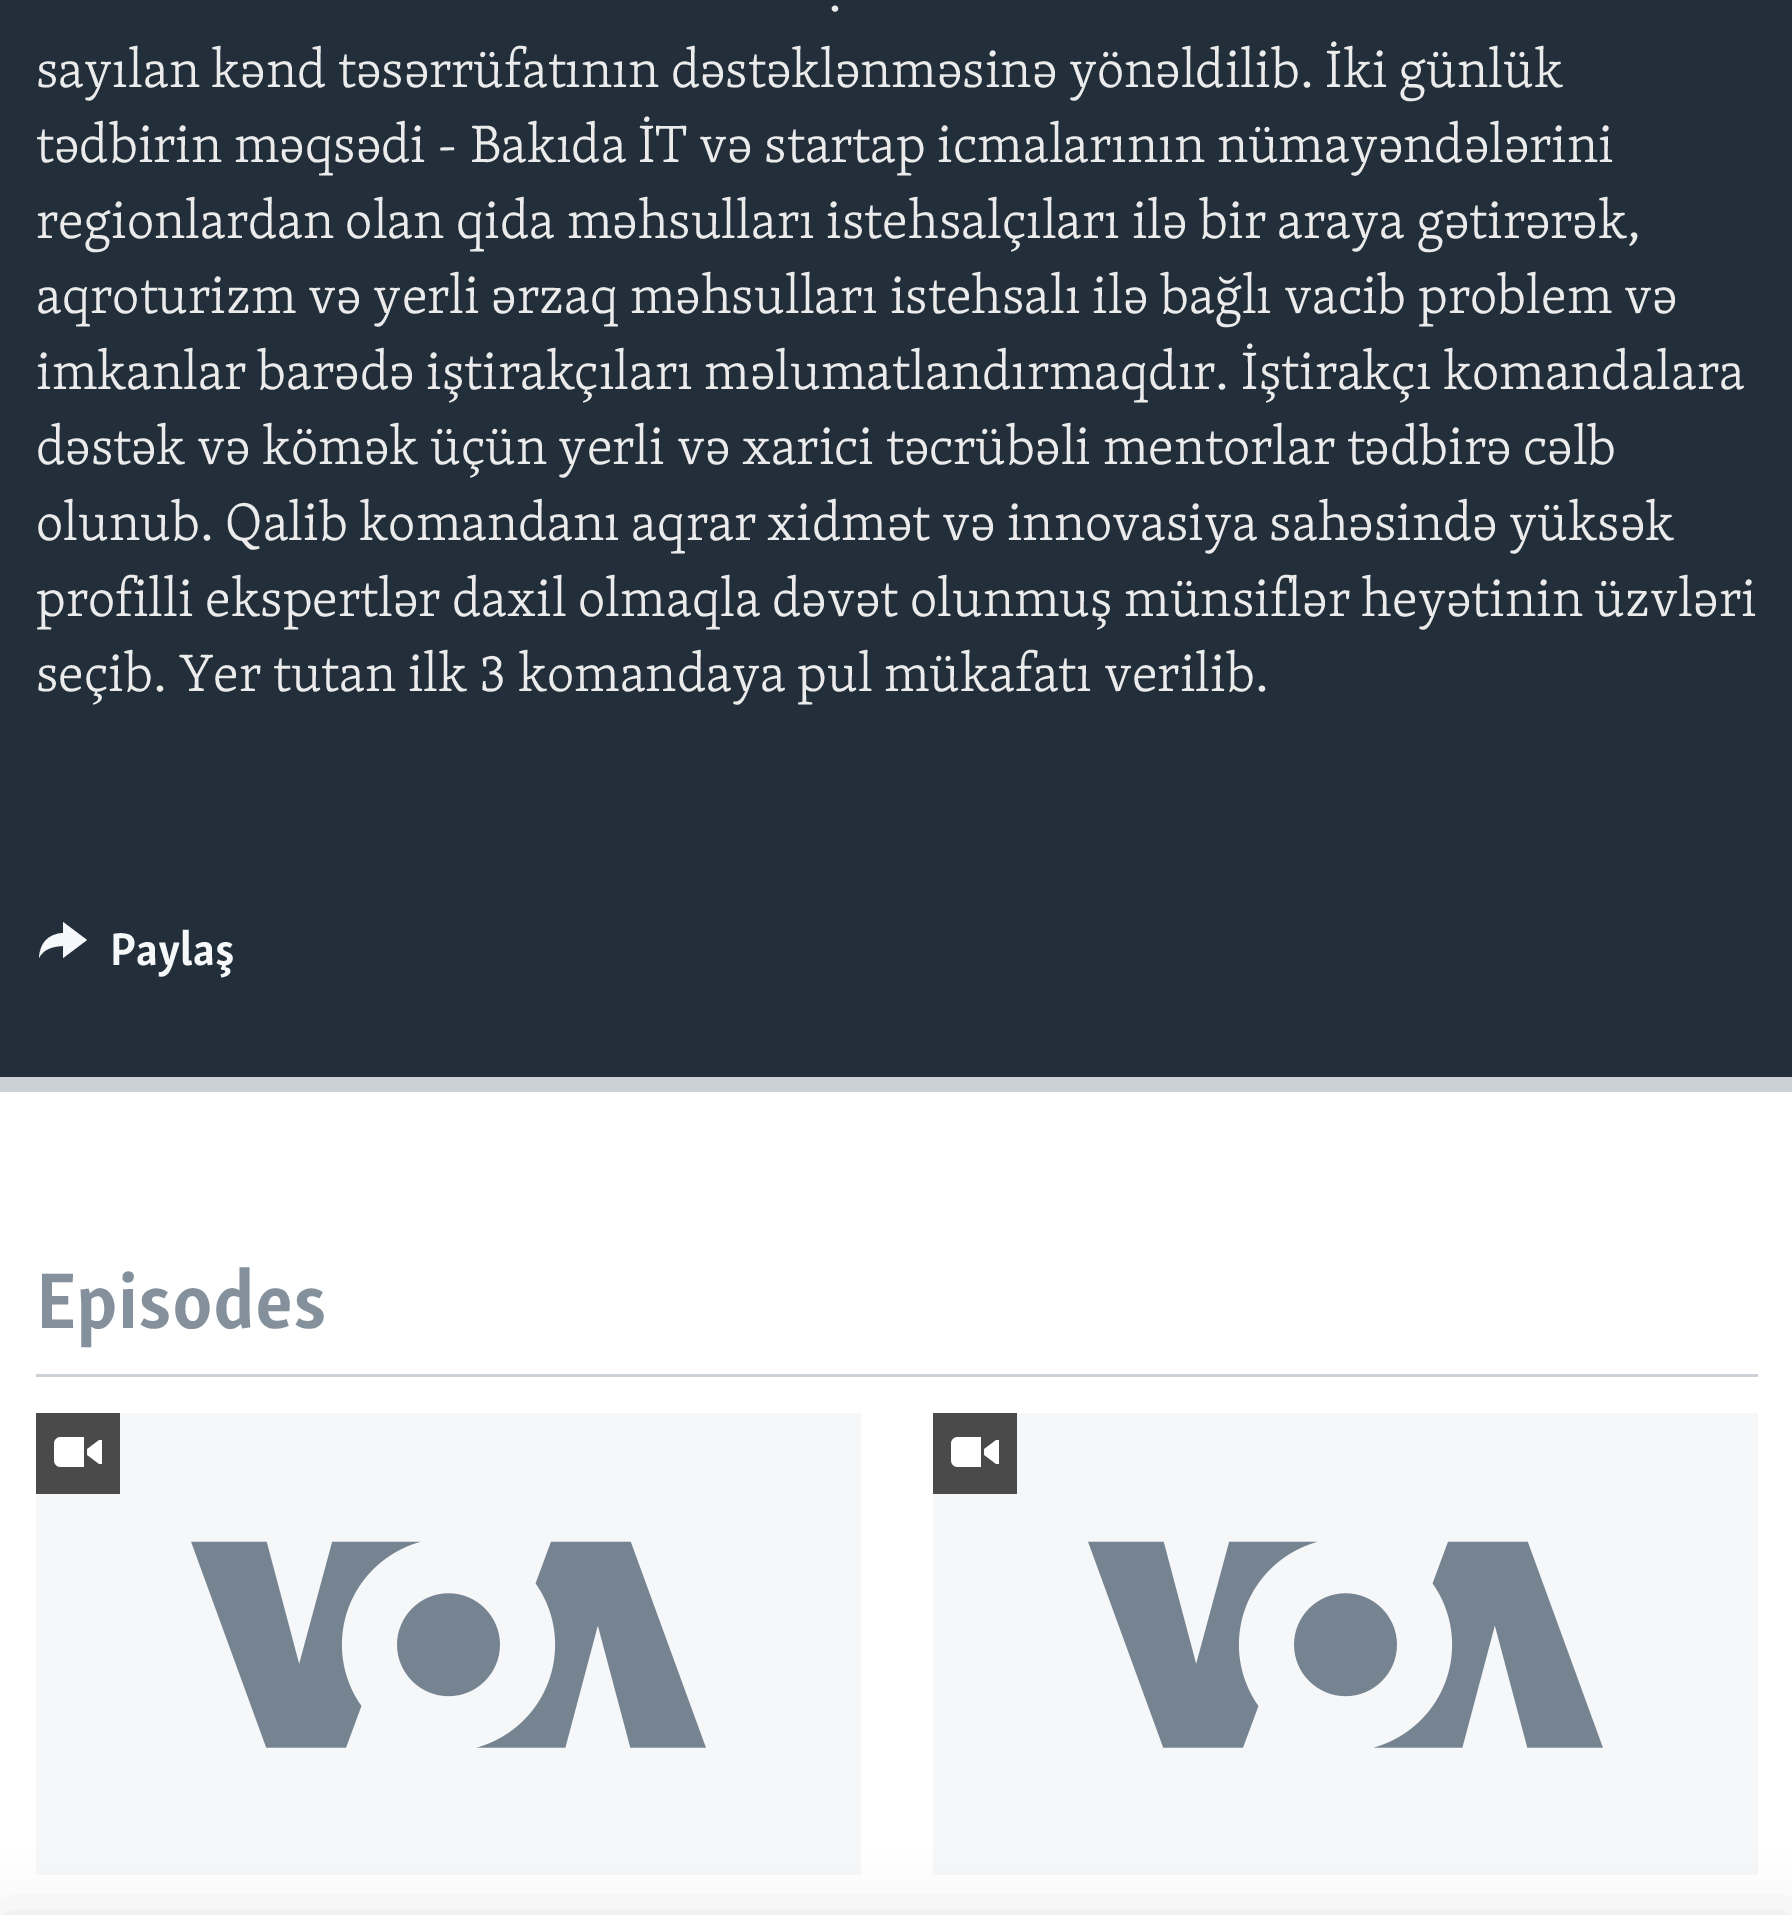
%!PS-Adobe-3.0
%%BoundingBox: 0 0 1792 1915
%%LanguageLevel: 3
%%Pages: 1
%%EndComments
%%BeginProlog
/setalpha { dup .setfillconstantalpha .setstrokeconstantalpha } def
/rrect { 5 dict begin { /r /h /w /y /x } { exch def } forall
  x r add y moveto x w add y 2 copy h add r arct x w add y h add x 1 index r arct
  x y h add x y r arct x y 2 copy exch w add exch r arct closepath end } def
/softshadow { 12 dict begin { /a /b /q /h /w /y /x } { exch def } forall gsave /was 0 def
  9 -2 -9 { dup b mul 4 div /e exch def 1 sub .425 mul 2.718 exch exp 1 add a .99 .min exch div /now exch def
    1 1 now sub 1 was sub div sub setalpha /was now def
    w h .min e 2 mul add 0 gt { x e sub y e sub w e 2 mul add h e 2 mul add
      q e add b .6 mul add w h .min 2 div e add .min 0 .max rrect fill } if } for grestore end } def
/drawimage { 5 dict begin { /h /w /y /x /name } { exch def } forall
  gsave x y translate w h scale
  w h 8 [w 0 0 h 0 0] name (r) file false 3 colorimage grestore end } def
%%EndProlog
%%BeginSetup
<< /PageSize [1792 1915] /PageUsesTransparency true >> setpagedevice
%%EndSetup
%%Page: 1 1
0 .pushpdf14devicefilter
0 1915 translate 1 -1 scale
4 setmiterlimit
1 setgray
0 0 1792 1915 rectfill
0.133 0.184 0.227 setrgbcolor
0 0 1792 1077 rectfill
0.796 0.82 0.839 setrgbcolor
0 1077 1792 15 rectfill
0.965 0.969 0.973 setrgbcolor
newpath 39 958 moveto 40 943 48 934 63 933 curveto 63 922 lineto 87 940 lineto 63 958 lineto 63 946 lineto 54 946 43 949 39 958 curveto closepath fill
0.796 0.82 0.839 setrgbcolor
36 1374 1722 3 rectfill
0.965 0.969 0.973 setrgbcolor
36 1413 825 462 rectfill
(images/1.raw) 191 1541 515 207 drawimage
0.29 setgray
36 1413 84 81 rectfill
(images/2.raw) 54 1437 48 30 drawimage
0.965 0.969 0.973 setrgbcolor
933 1413 825 462 rectfill
(images/1.raw) 1088 1541 515 207 drawimage
0.29 setgray
933 1413 84 81 rectfill
(images/2.raw) 951 1437 48 30 drawimage
0 setgray
0 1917 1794 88 0 30 0.1 softshadow
/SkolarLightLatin-Light [54 0 0 -54 0 0] selectfont
0.922 setgray
828 11 moveto (.) show
36 87 moveto (sayılan kənd təsərrüfatının dəstəklənməsinə yönəldilib. İki günlük) show
36 162 moveto (tədbirin məqsədi - Bakıda İT və startap icmalarının nümayəndələrini) show
36 238 moveto (regionlardan olan qida məhsulları istehsalçıları ilə bir araya gətirərək,) show
36 313 moveto (aqroturizm və yerli ərzaq məhsulları istehsalı ilə bağlı vacib problem və) show
36 389 moveto (imkanlar barədə iştirakçıları məlumatlandırmaqdır. İştirakçı komandalara) show
36 464 moveto (dəstək və kömək üçün yerli və xarici təcrübəli mentorlar tədbirə cəlb) show
36 540 moveto (olunub. Qalib komandanı aqrar xidmət və innovasiya sahəsində yüksək) show
36 616 moveto (profilli ekspertlər daxil olmaqla dəvət olunmuş münsiflər heyətinin üzvləri) show
36 691 moveto (seçib. Yer tutan ilk 3 komandaya pul mükafatı verilib.) show
/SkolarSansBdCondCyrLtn-Bold [47 0 0 -47 0 0] selectfont
0.965 0.969 0.973 setrgbcolor
110 965 moveto (Paylaş) show
/SkolarSansBdCondCyrLtn-Bold [81 0 0 -81 0 0] selectfont
0.518 0.569 0.616 setrgbcolor
36 1328 moveto (Episodes) show
.poppdf14devicefilter showpage
%%EOF
